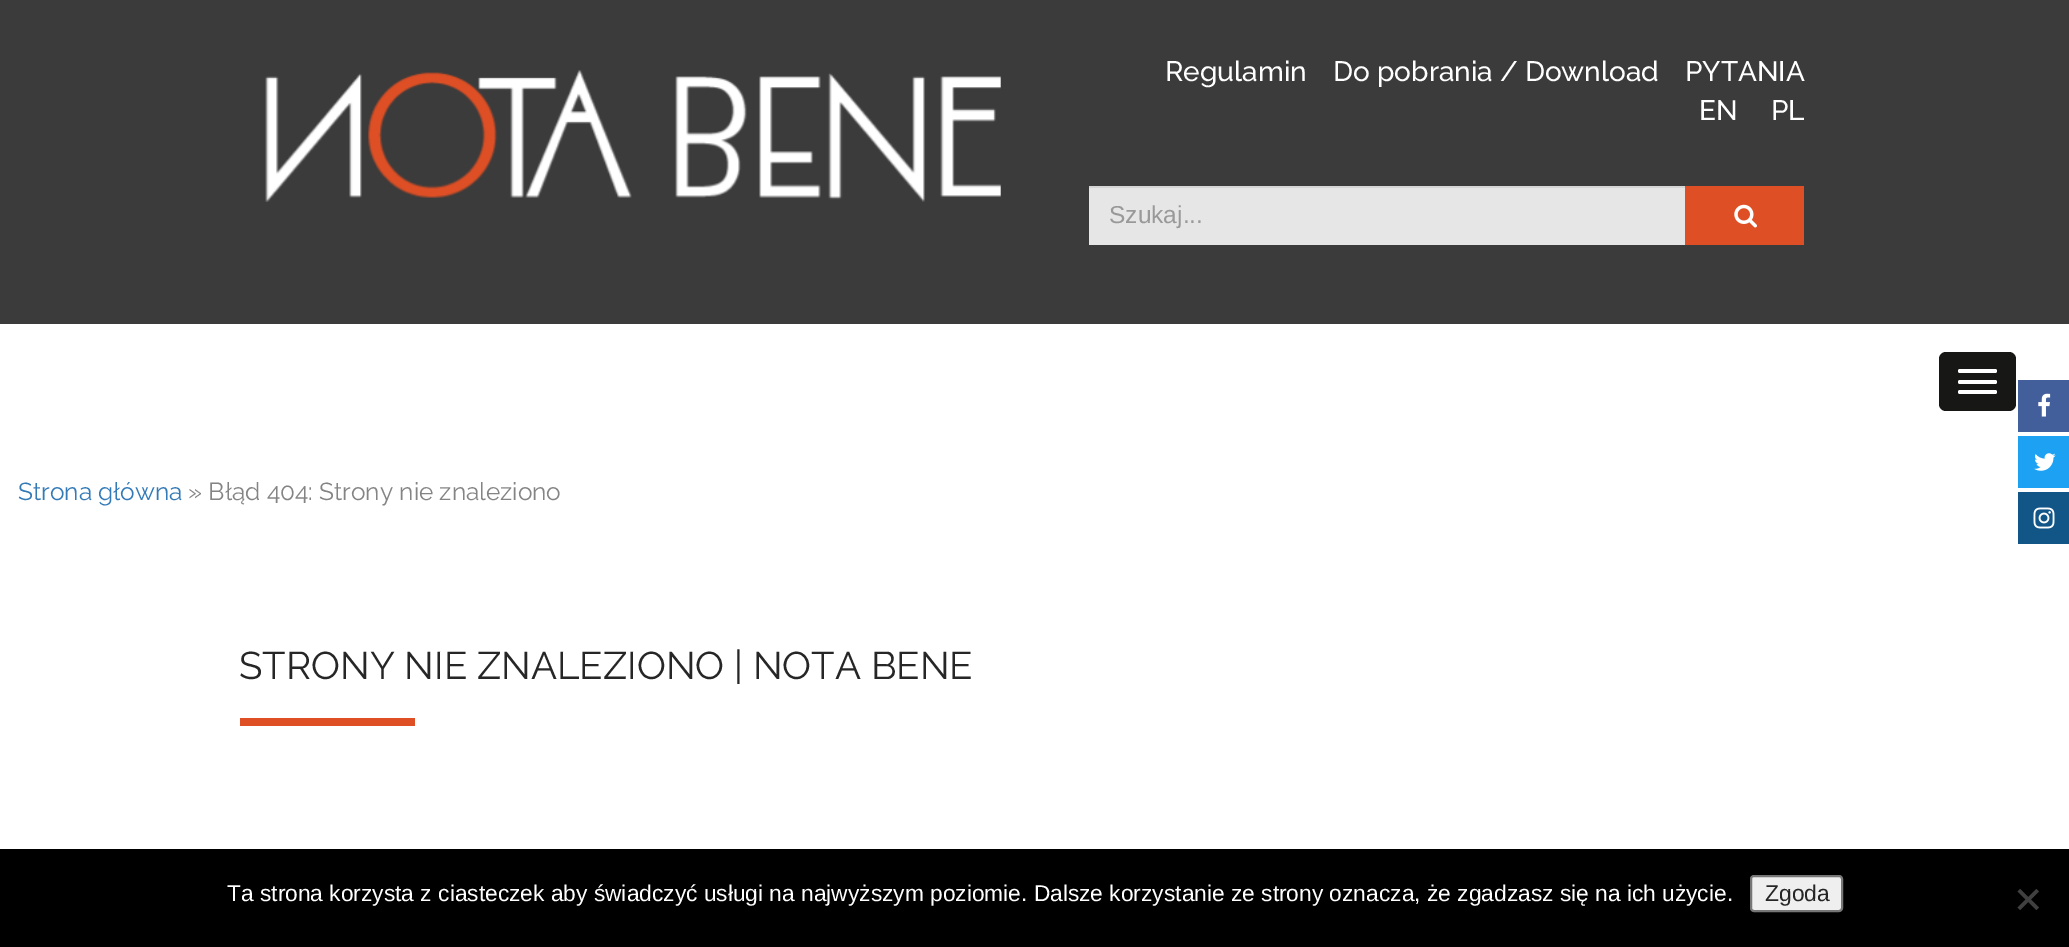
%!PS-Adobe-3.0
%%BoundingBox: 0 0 2069 947
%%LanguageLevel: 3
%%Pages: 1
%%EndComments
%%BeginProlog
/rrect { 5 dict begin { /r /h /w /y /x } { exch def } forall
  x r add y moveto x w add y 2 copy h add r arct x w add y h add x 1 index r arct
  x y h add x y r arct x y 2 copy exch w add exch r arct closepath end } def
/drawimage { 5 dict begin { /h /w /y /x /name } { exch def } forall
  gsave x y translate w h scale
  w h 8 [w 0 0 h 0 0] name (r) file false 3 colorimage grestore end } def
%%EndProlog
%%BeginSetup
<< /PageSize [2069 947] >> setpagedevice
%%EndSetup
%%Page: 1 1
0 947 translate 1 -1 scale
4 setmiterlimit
1 setgray
0 0 2069 947 rectfill
0.231 setgray
0 0 2069 324 rectfill
(images/1.raw) 265 70 736 132 drawimage
0.902 setgray
1089 188 596 57 rectfill
0.835 setgray
1089 186 596 2 rectfill
0.871 0.31 0.145 setrgbcolor
1685 186 119 59 rectfill
(images/2.raw) 1734 204 23 24 drawimage
0.09 0.09 0.082 setrgbcolor
1939 352 77 59 7 rrect fill
1 setgray
1958 369 39 4 2 rrect fill
1958 380 39 4 2 rrect fill
1958 390 39 4 2 rrect fill
0.259 0.373 0.612 setrgbcolor
2018 380 51 52 rectfill
(images/3.raw) 2038 393 13 24 drawimage
0.114 0.631 0.949 setrgbcolor
2018 436 51 52 rectfill
(images/4.raw) 2034 453 22 18 drawimage
0.071 0.337 0.533 setrgbcolor
2018 492 51 52 rectfill
(images/5.raw) 2033 507 22 22 drawimage
0.871 0.31 0.145 setrgbcolor
240 718 175 8 rectfill
0 setgray
0 849 2069 98 rectfill
0.937 setgray
1751 876 91 35 3 rrect gsave fill grestore
0.463 setgray
2 setlinewidth
stroke
0.251 setgray
newpath 2036.5 889 moveto 2039 891.5 lineto 2020 910 lineto 2017.5 907.5 lineto closepath fill
newpath 2017.5 891.5 moveto 2020 889 lineto 2039 907.5 lineto 2036.5 910 lineto closepath fill
/Raleway-Medium [28 0 0 -28 0 0] selectfont
1 setgray
1165 81 moveto (Regulamin) show
1333 81 moveto (Do pobrania / Download) show
1685 81 moveto (PYTANIA) show
1699 120 moveto (EN) show
1771 120 moveto (PL) show
/LiberationSans-Regular [24.5 0 0 -24.5 0 0] selectfont
0.6 setgray
1109 223 moveto (Szukaj...) show
/Raleway-Regular [24.5 0 0 -24.5 0 0] selectfont
0.2 0.478 0.718 setrgbcolor
18 500 moveto (Strona główna) show
0.518 setgray
188 500 moveto (» Błąd 404: Strony nie znaleziono) show
/Raleway-Regular [38.5 0 0 -38.5 0 0] selectfont
0.149 setgray
239 679 moveto (STRONY NIE ZNALEZIONO | NOTA BENE) show
/LiberationSans-Regular [22.75 0 0 -22.75 0 0] selectfont
1 setgray
227 901 moveto (Ta strona korzysta z ciasteczek aby świadczyć usługi na najwyższym poziomie. Dalsze korzystanie ze strony oznacza, że zgadzasz się na ich użycie.) show
0.149 setgray
1765 901 moveto (Zgoda) show
showpage
%%EOF
